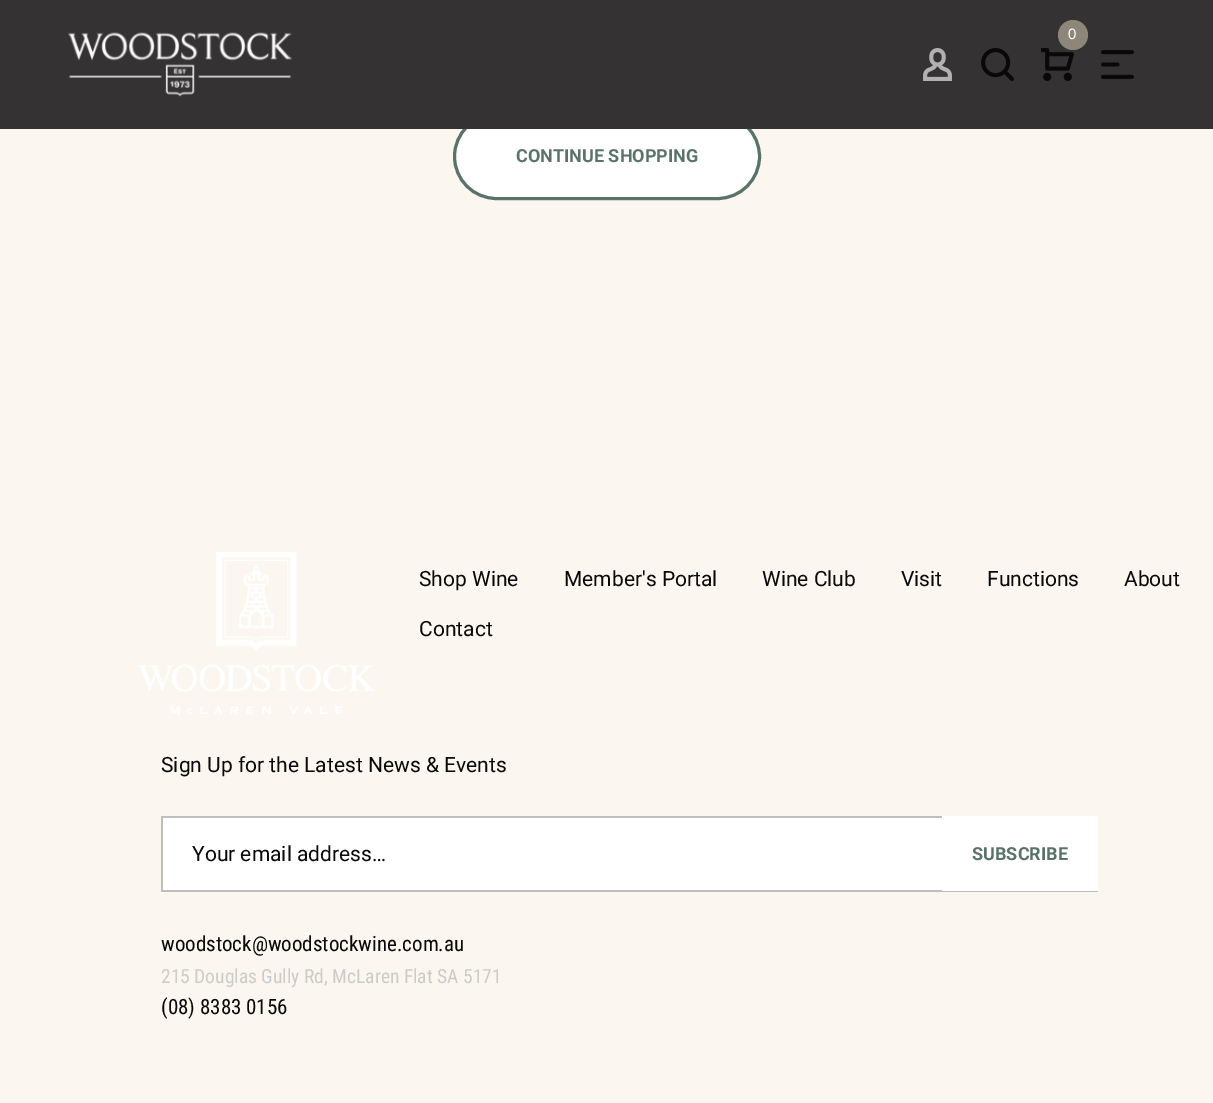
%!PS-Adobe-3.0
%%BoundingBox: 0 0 1213 1103
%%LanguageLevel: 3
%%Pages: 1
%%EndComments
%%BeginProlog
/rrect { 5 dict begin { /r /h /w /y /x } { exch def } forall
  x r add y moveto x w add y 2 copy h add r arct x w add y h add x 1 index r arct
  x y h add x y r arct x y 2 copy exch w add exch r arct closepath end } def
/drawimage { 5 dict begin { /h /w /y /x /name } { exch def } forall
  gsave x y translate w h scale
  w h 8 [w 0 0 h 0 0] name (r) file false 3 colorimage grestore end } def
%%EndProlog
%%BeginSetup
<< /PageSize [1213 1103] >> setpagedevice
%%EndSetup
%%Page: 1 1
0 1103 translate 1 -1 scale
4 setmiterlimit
0.984 0.969 0.941 setrgbcolor
0 0 1213 1103 rectfill
1 setgray
454.5 114.5 305 84 42 rrect gsave fill grestore
0.349 0.451 0.408 setrgbcolor
3 setlinewidth
stroke
0.204 0.196 0.196 setrgbcolor
0 0 1213 129 rectfill
(images/1.raw) 68 32 225 65 drawimage
(images/2.raw) 1041 48 33 33 drawimage
0.549 0.529 0.471 setrgbcolor
newpath 1073 35 15 0 360 arc closepath fill
(images/3.raw) 923 48 29 33 drawimage
(images/4.raw) 981 48 33 33 drawimage
(images/5.raw) 1101 50 33 29 drawimage
(images/6.raw) 138 552 237 162 drawimage
1 setgray
163 818 779 72 rectfill
0.745 setgray
161 816 781 2 rectfill
161 890 937 2 rectfill
161 816 2 75 rectfill
1 setgray
942 816 156 75 rectfill
/LiberationSans-Regular [15 0 0 -15 0 0] selectfont
1068 39 moveto (0) show
/Roboto-Bold [18 0 0 -18 0 0] selectfont
0.349 0.451 0.408 setrgbcolor
516 162 moveto (CONTINUE SHOPPING) show
/Roboto-Regular [21 0 0 -21 0 0] selectfont
0.039 0.035 0.035 setrgbcolor
419 586 moveto (Shop Wine) show
564 586 moveto (Member's Portal) show
762 586 moveto (Wine Club) show
901 586 moveto (Visit) show
987 586 moveto (Functions) show
1124 586 moveto (About) show
419 636 moveto (Contact) show
161 772 moveto (Sign Up for the Latest News & Events) show
192 861 moveto (Your email address…) show
/Roboto-Bold [18 0 0 -18 0 0] selectfont
0.349 0.451 0.408 setrgbcolor
972 860 moveto (SUBSCRIBE) show
/RobotoCondensed-Regular [21 0 0 -21 0 0] selectfont
0.039 0.035 0.035 setrgbcolor
161 951 moveto (woodstock@woodstockwine.com.au) show
/RobotoCondensed-Regular [19.5 0 0 -19.5 0 0] selectfont
0.8 0.796 0.796 setrgbcolor
161 983 moveto (215 Douglas Gully Rd, McLaren Flat SA 5171) show
/RobotoCondensed-Regular [21 0 0 -21 0 0] selectfont
0.039 0.035 0.035 setrgbcolor
161 1014 moveto (\(08\) 8383 0156) show
showpage
%%EOF
